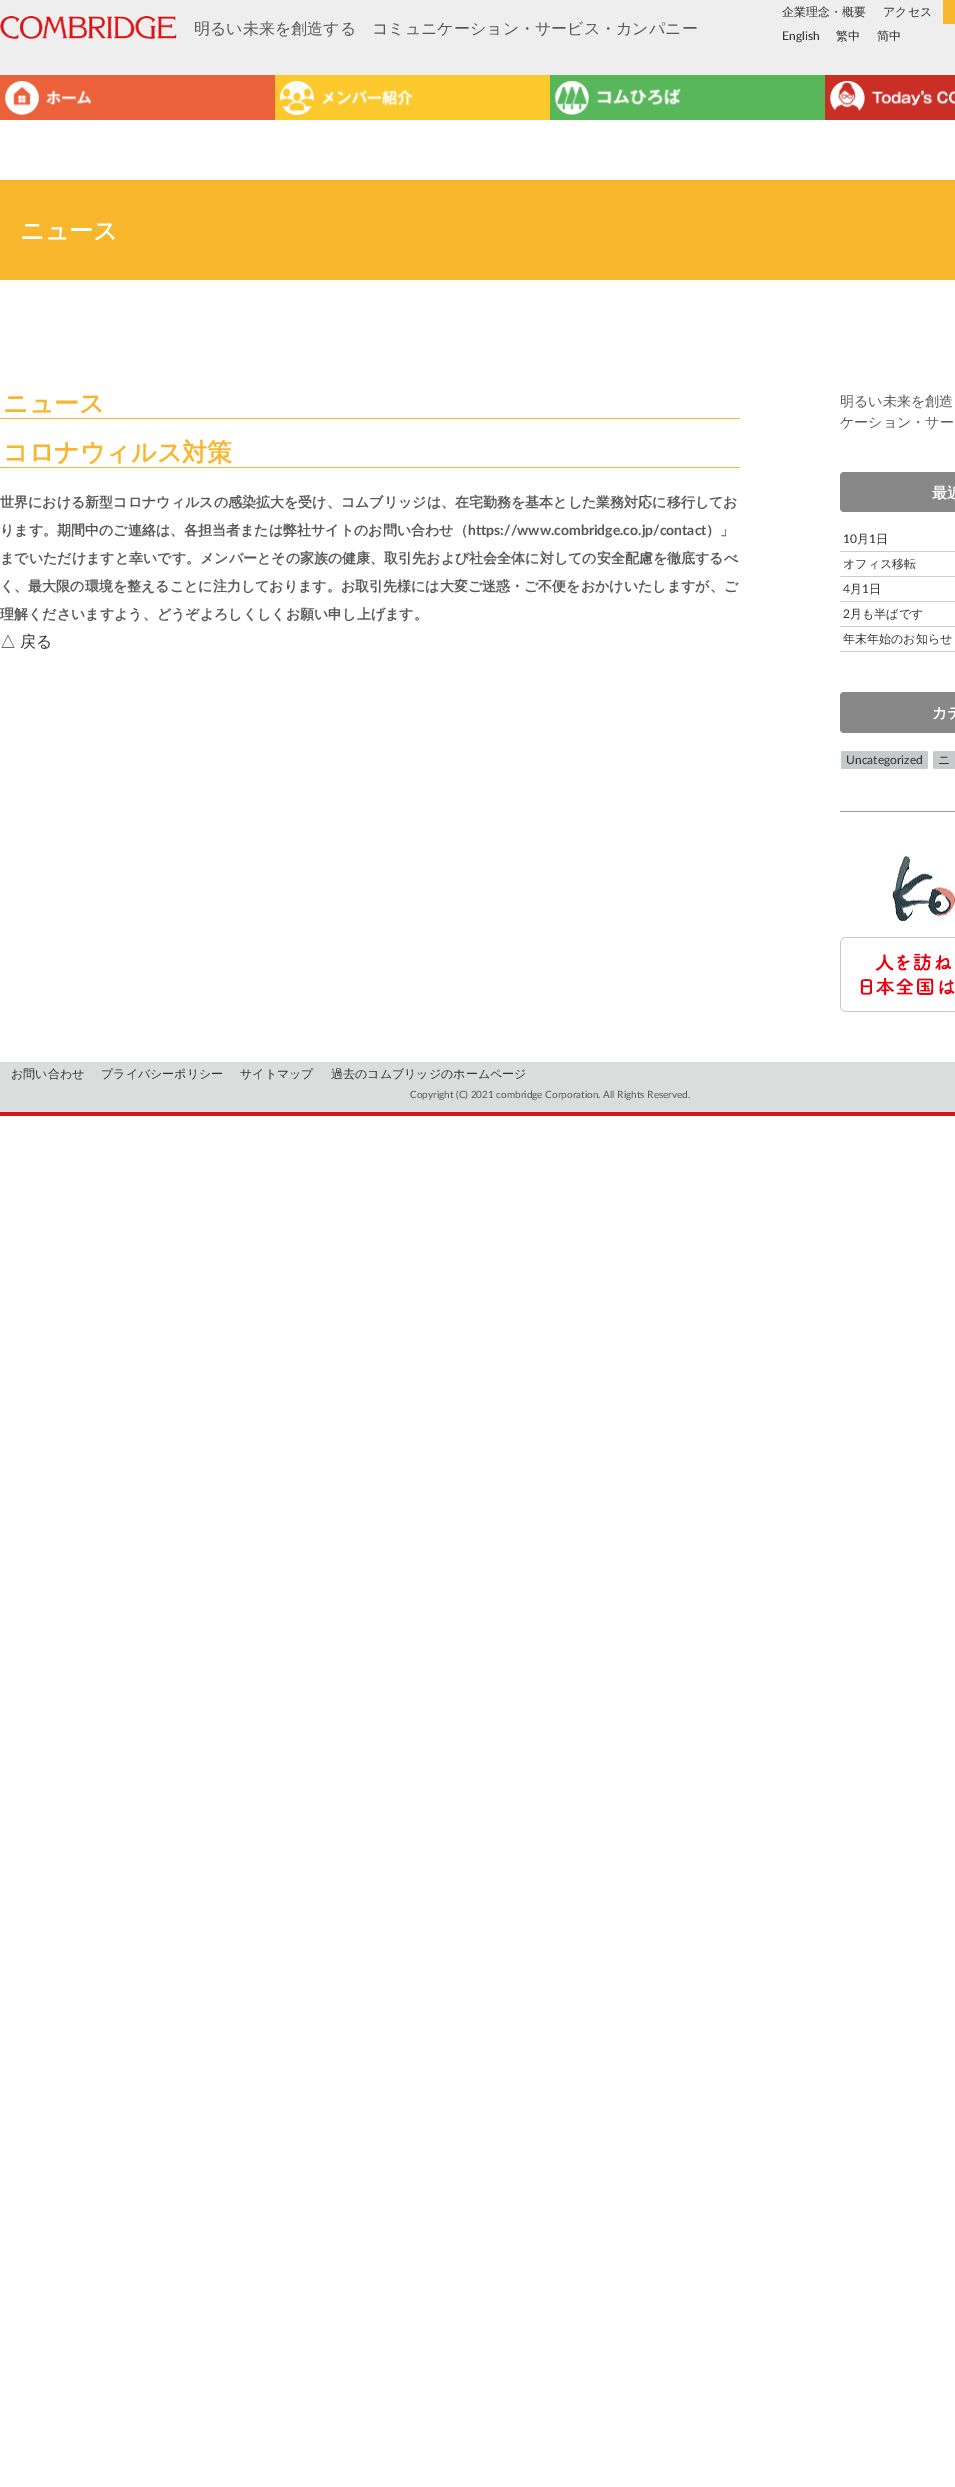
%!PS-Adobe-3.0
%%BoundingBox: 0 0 955 2487
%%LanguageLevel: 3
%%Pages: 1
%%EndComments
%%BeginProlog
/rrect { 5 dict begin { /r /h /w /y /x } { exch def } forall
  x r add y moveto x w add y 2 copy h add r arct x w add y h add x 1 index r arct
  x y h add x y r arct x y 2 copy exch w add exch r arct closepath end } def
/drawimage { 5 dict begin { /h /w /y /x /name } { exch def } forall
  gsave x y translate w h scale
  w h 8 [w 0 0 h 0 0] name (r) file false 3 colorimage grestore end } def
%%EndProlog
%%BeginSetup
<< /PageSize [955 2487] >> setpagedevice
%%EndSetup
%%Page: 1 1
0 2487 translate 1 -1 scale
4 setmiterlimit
1 setgray
0 0 955 2487 rectfill
0.933 0.933 0.937 setrgbcolor
0 0 955 75 rectfill
(images/1.raw) 0 16 177 23 drawimage
0.973 0.714 0.173 setrgbcolor
943 0 12 24 rectfill
0.922 0.38 0.231 setrgbcolor
0 75 275 45 rectfill
(images/2.raw) 5 81 86 34 drawimage
0.988 0.788 0.173 setrgbcolor
275 75 275 45 rectfill
(images/3.raw) 280 81 133 34 drawimage
0.349 0.718 0.357 setrgbcolor
550 75 275 45 rectfill
(images/4.raw) 555 81 126 34 drawimage
0.788 0.18 0.153 setrgbcolor
825 75 130 45 rectfill
(images/5.raw) 830 81 125 30 drawimage
0.973 0.714 0.176 setrgbcolor
0 180 955 100 rectfill
0 418 740 1 rectfill
0 467 740 1 rectfill
0.533 0.533 0.537 setrgbcolor
840 472 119 40 4 rrect fill
0.8 setgray
840 551 115 1 rectfill
840 576 115 1 rectfill
840 601 115 1 rectfill
840 626 115 1 rectfill
840 651 115 1 rectfill
0.533 0.533 0.537 setrgbcolor
840 692 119 41 4 rrect fill
0.784 0.788 0.792 setrgbcolor
841 751 87 18 2 rrect fill
933 751 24 18 2 rrect fill
0.6 setgray
840 811 115 1 rectfill
(images/6.raw) 892 856 63 65 drawimage
(images/7.raw) 840 937 115 75 drawimage
0.859 0.863 0.863 setrgbcolor
0 1062 955 50 rectfill
0.839 0.082 0.094 setrgbcolor
0 1112 955 4 rectfill
/WenQuanYiZenHei-Medium [16 0 0 -16 0 0] selectfont
0.349 0.341 0.341 setrgbcolor
194 34 moveto (明るい未来を創造する　コミュニケーション・サービス・カンパニー) show
/WenQuanYiZenHei-Medium [12 0 0 -12 0 0] selectfont
0.2 setgray
782 16 moveto (企業理念・概要) show
883 16 moveto (アクセス) show
/Lato-Regular [12 0 0 -12 0 0] selectfont
782 40 moveto (English) show
/WenQuanYiZenHei-Medium [12 0 0 -12 0 0] selectfont
836 40 moveto (繁中) show
877 40 moveto (简中) show
/WenQuanYiZenHei-Bold [24 0 0 -24 0 0] selectfont
1 setgray
20 239 moveto (ニュース) show
/WenQuanYiZenHei-Bold [25 0 0 -25 0 0] selectfont
0.973 0.714 0.176 setrgbcolor
3 412 moveto (ニュース) show
3 461 moveto (コロナウィルス対策) show
/WenQuanYiZenHei-Bold [14 0 0 -14 0 0] selectfont
0.349 0.341 0.341 setrgbcolor
0 507 moveto (世界における新型コロナウィルスの感染拡大を受け、コムブリッジは、在宅勤務を基本とした業務対応に移行してお) show
0 535 moveto (ります。期間中のご連絡は、各担当者または弊社サイトのお問い合わせ（) show
/Lato-Bold [14 0 0 -14 0 0] selectfont
468 535 moveto (https://www.combridge.co.jp/contact) show
/WenQuanYiZenHei-Bold [14 0 0 -14 0 0] selectfont
706 535 moveto (）」) show
0 563 moveto (までいただけますと幸いです。メンバーとその家族の健康、取引先および社会全体に対しての安全配慮を徹底するべ) show
0 591 moveto (く、最大限の環境を整えることに注力しております。お取引先様には大変ご迷惑・ご不便をおかけいたしますが、ご) show
0 619 moveto (理解くださいますよう、どうぞよろしくしくお願い申し上げます。) show
/WenQuanYiZenHei-Medium [16 0 0 -16 0 0] selectfont
0.2 setgray
0 647 moveto -1 0 32 (△ 戻る) widthshow
/WenQuanYiZenHei-Medium [14 0 0 -14 0 0] selectfont
0.349 0.341 0.341 setrgbcolor
840 406 moveto (明るい未来を創造) show
840 427 moveto (ケーション・サー) show
/WenQuanYiZenHei-Bold [15 0 0 -15 0 0] selectfont
1 setgray
932 498 moveto (最近) show
/Lato-Regular [12 0 0 -12 0 0] selectfont
0.2 setgray
843 543 moveto (10) show
/WenQuanYiZenHei-Medium [12 0 0 -12 0 0] selectfont
857 543 moveto (月) show
/Lato-Regular [12 0 0 -12 0 0] selectfont
869 543 moveto (1) show
/WenQuanYiZenHei-Medium [12 0 0 -12 0 0] selectfont
876 543 moveto (日) show
843 568 moveto (オフィス移転) show
/Lato-Regular [12 0 0 -12 0 0] selectfont
843 593 moveto (4) show
/WenQuanYiZenHei-Medium [12 0 0 -12 0 0] selectfont
850 593 moveto (月) show
/Lato-Regular [12 0 0 -12 0 0] selectfont
862 593 moveto (1) show
/WenQuanYiZenHei-Medium [12 0 0 -12 0 0] selectfont
869 593 moveto (日) show
/Lato-Regular [12 0 0 -12 0 0] selectfont
843 618 moveto (2) show
/WenQuanYiZenHei-Medium [12 0 0 -12 0 0] selectfont
850 618 moveto (月も半ばです) show
843 643 moveto (年末年始のお知らせ) show
/WenQuanYiZenHei-Bold [15 0 0 -15 0 0] selectfont
1 setgray
932 718 moveto (カテ) show
/Lato-Regular [12 0 0 -12 0 0] selectfont
0.2 setgray
846 764 moveto (Uncategorized) show
/WenQuanYiZenHei-Medium [12 0 0 -12 0 0] selectfont
938 764 moveto (ニ) show
11 1078 moveto (お問い合わせ) show
101 1078 moveto (プライバシーポリシー) show
240 1078 moveto (サイトマップ) show
331 1078 moveto (過去のコムブリッジのホームページ) show
/Lato-Regular [10 0 0 -10 0 0] selectfont
0.349 0.341 0.341 setrgbcolor
410 1098 moveto (Copyright \(C\) 2021 combridge Corporation. All Rights Reserved.) show
showpage
%%EOF
